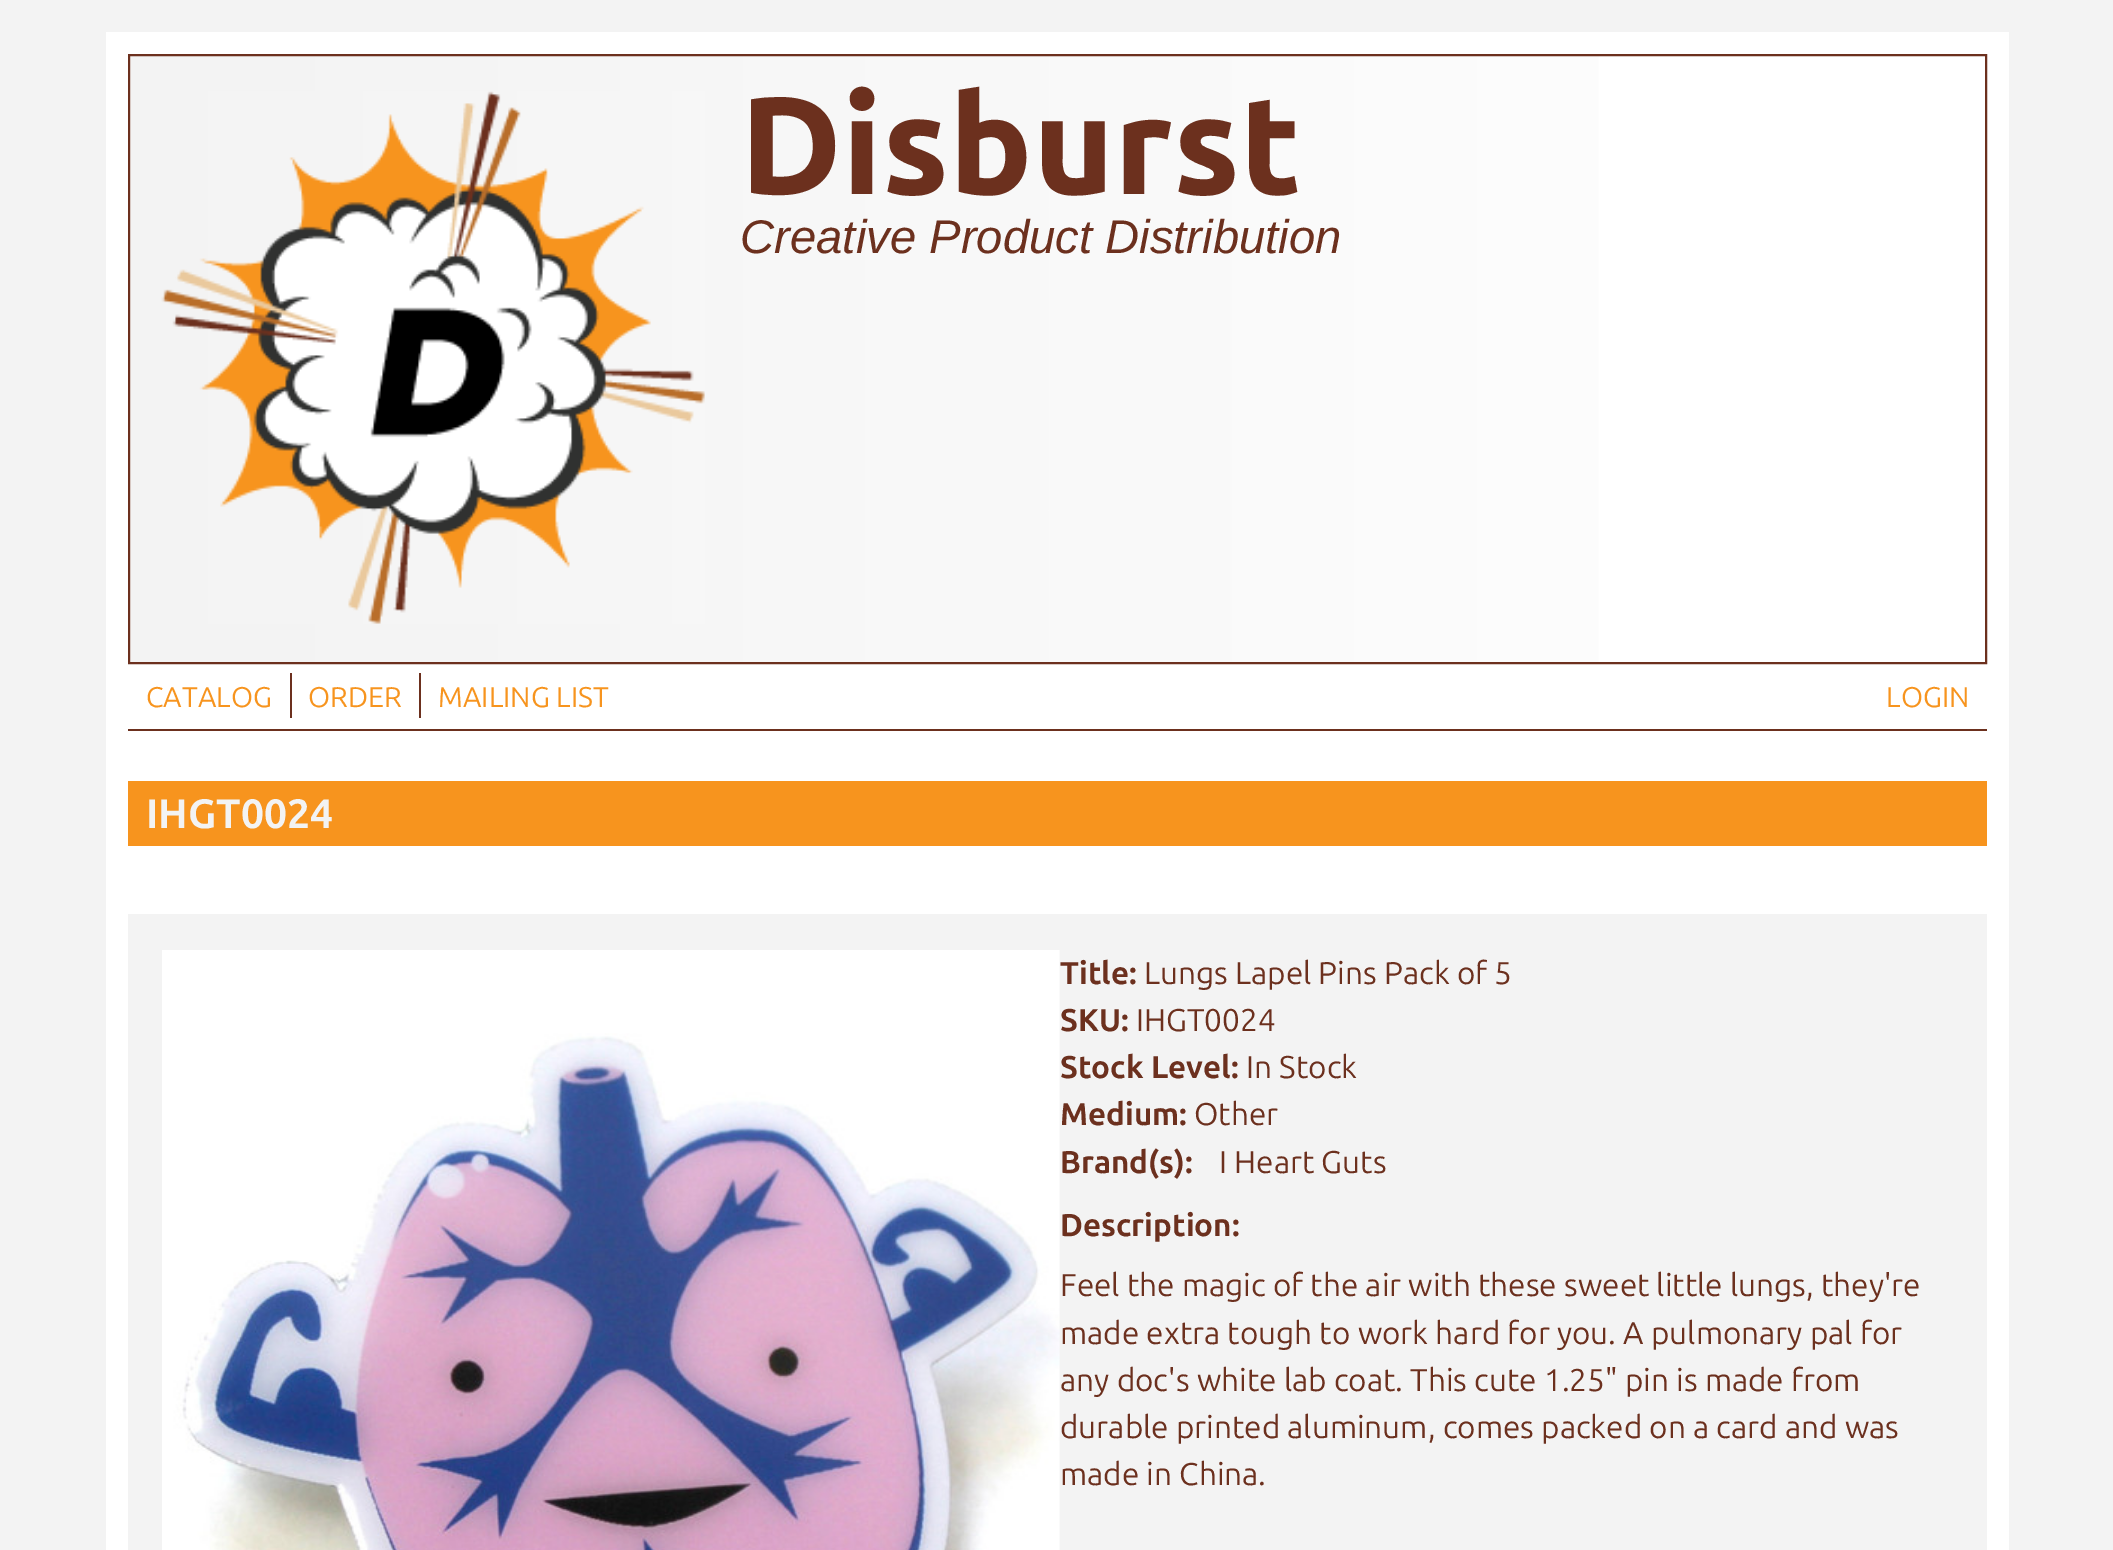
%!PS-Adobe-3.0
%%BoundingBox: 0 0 2113 1550
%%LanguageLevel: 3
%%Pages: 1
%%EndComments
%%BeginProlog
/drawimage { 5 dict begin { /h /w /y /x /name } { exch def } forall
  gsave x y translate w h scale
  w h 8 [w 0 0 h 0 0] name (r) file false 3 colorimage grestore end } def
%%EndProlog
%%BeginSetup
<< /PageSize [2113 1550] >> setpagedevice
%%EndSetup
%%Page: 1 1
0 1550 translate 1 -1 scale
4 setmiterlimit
0.953 setgray
0 0 2113 1550 rectfill
1 setgray
106 32 1903 1518 rectfill
gsave newpath 131 56 moveto 1599 56 lineto 1599 662 lineto 131 662 lineto closepath clip newpath
<< /ShadingType 2 /ColorSpace /DeviceRGB /Coords [131 359 1985 359] /Extend [true true] /Function << /FunctionType 2 /Domain [0 1] /C0 [0.953 0.953 0.953] /C1 [1 1 1] /N 1 >> >> shfill grestore
0.424 0.188 0.118 setrgbcolor
2 setlinewidth
129 55 1857 608 rectstroke
(images/1.raw) 161 91 544 533 drawimage
128 729 1859 2 rectfill
290 673 2 45 rectfill
419 673 2 45 rectfill
0.969 0.58 0.118 setrgbcolor
128 781 1859 65 rectfill
0.953 setgray
128 914 1859 636 rectfill
(images/2.raw) 162 950 898 600 drawimage
/Ubuntu-ExtraBold [138.5 0 0 -138.5 0 0] selectfont
0.424 0.188 0.118 setrgbcolor
740 194 moveto (Disburst) show
/LiberationSans-Italic [47.25 0 0 -47.25 0 0] selectfont
740 253 moveto (Creative Product Distribution) show
/Ubuntu-Regular [28.5 0 0 -28.5 0 0] selectfont
0.969 0.58 0.118 setrgbcolor
146 707 moveto (CATALOG) show
308 707 moveto (ORDER) show
438 707 moveto (MAILING LIST) show
1886 707 moveto (LOGIN) show
/Ubuntu-Bold [41 0 0 -41 0 0] selectfont
0.953 setgray
146 828 moveto (IHGT0024) show
/Ubuntu-Bold [31.5 0 0 -31.5 0 0] selectfont
0.424 0.188 0.118 setrgbcolor
1060 984 moveto (Title:) show
/Ubuntu-Regular [31.5 0 0 -31.5 0 0] selectfont
1144 984 moveto (Lungs Lapel Pins Pack of 5) show
/Ubuntu-Bold [31.5 0 0 -31.5 0 0] selectfont
1060 1031 moveto (SKU:) show
/Ubuntu-Regular [31.5 0 0 -31.5 0 0] selectfont
1136 1031 moveto (IHGT0024) show
/Ubuntu-Bold [31.5 0 0 -31.5 0 0] selectfont
1060 1078 moveto (Stock Level:) show
/Ubuntu-Regular [31.5 0 0 -31.5 0 0] selectfont
1246 1078 moveto (In Stock) show
/Ubuntu-Bold [31.5 0 0 -31.5 0 0] selectfont
1060 1125 moveto (Medium:) show
/Ubuntu-Regular [31.5 0 0 -31.5 0 0] selectfont
1194 1125 moveto (Other) show
/Ubuntu-Bold [31.5 0 0 -31.5 0 0] selectfont
1060 1173 moveto (Brand\(s\):) show
/Ubuntu-Regular [31.5 0 0 -31.5 0 0] selectfont
1219 1173 moveto (I Heart Guts) show
/Ubuntu-Bold [31.5 0 0 -31.5 0 0] selectfont
1060 1236 moveto (Description:) show
/Ubuntu-Regular [31.5 0 0 -31.5 0 0] selectfont
1060 1296 moveto (Feel the magic of the air with these sweet little lungs, they're) show
1060 1344 moveto (made extra tough to work hard for you. A pulmonary pal for) show
1060 1391 moveto (any doc's white lab coat. This cute 1.25" pin is made from) show
1060 1438 moveto (durable printed aluminum, comes packed on a card and was) show
1060 1485 moveto (made in China.) show
showpage
%%EOF
